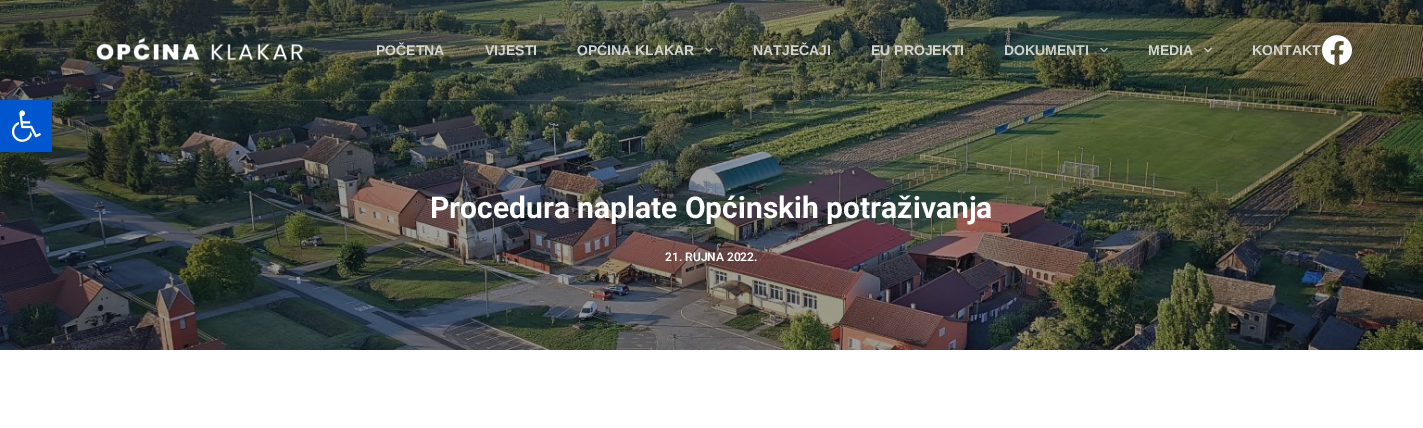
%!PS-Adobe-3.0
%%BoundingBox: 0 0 1423 428
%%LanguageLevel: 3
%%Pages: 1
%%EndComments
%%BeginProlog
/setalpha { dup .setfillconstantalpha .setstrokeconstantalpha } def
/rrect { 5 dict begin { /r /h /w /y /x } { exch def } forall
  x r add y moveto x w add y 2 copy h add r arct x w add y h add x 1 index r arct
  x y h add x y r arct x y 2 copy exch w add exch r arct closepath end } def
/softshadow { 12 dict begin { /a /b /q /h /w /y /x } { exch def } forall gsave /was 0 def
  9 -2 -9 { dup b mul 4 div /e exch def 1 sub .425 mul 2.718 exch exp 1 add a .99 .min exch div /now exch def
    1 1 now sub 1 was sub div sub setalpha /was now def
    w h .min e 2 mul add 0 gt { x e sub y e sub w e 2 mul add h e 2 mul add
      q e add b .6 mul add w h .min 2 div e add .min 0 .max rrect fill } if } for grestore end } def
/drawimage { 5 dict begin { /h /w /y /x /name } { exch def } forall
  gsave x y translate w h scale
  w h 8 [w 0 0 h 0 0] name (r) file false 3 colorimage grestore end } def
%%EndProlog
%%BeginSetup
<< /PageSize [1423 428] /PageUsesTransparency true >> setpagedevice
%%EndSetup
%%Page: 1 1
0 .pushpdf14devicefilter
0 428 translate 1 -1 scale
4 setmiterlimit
1 setgray
0 0 1423 428 rectfill
(images/7.raw) 0 0 1423 350 drawimage
0 setgray
0 100 52 52 0 5 0.1 softshadow
0 0.337 0.808 setrgbcolor
0 100 52 52 rectfill
(images/1.raw) 11 110 30 32 drawimage
0.1 setalpha
1 setgray
71 100 1281 1 rectfill
1 setalpha
(images/2.raw) 96 37 207 24 drawimage
(images/3.raw) 705 47 8 6 drawimage
(images/4.raw) 1100 47 8 6 drawimage
(images/5.raw) 1204 47 8 6 drawimage
(images/6.raw) 1322 35 30 30 drawimage
/LiberationSans-Bold [14 0 0 -14 0 0] selectfont
0.831 0.835 0.82 setrgbcolor
376 55 moveto (POČETNA) show
485 55 moveto (VIJESTI) show
577 55 moveto (OPĆINA KLAKAR) show
753 55 moveto (NATJEČAJI) show
871 55 moveto (EU PROJEKTI) show
0.804 0.824 0.808 setrgbcolor
1004 55 moveto (DOKUMENTI) show
0.831 0.835 0.82 setrgbcolor
1148 55 moveto (MEDIA) show
1252 55 moveto (KONTAKT) show
/Roboto-Bold [30 0 0 -30 0 0] selectfont
1 setgray
430 218 moveto (Procedura naplate Općinskih potraživanja) show
/Roboto-SemiBold [12 0 0 -12 0 0] selectfont
665 261 moveto (21. RUJNA 2022.) show
.poppdf14devicefilter showpage
%%EOF
